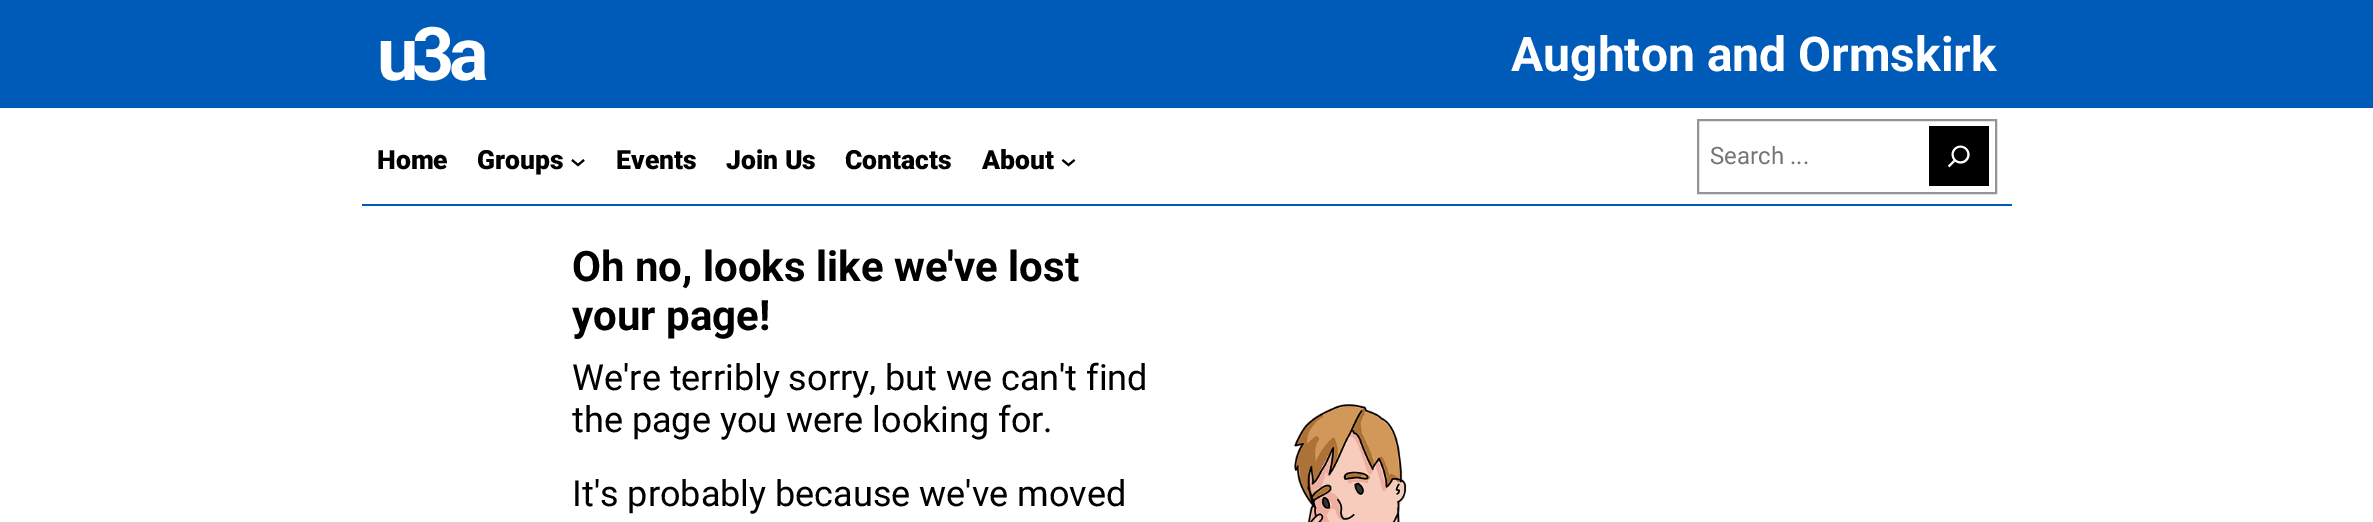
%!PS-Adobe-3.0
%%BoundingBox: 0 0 2373 522
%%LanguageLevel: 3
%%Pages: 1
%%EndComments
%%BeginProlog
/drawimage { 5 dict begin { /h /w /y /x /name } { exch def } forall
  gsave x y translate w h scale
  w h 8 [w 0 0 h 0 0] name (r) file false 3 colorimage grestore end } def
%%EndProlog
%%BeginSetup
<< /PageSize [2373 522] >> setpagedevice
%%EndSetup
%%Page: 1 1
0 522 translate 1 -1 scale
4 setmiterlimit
1 setgray
0 0 2373 522 rectfill
0 0.353 0.722 setrgbcolor
0 0 2373 108 rectfill
362 204 1650 2 rectfill
0 setgray
2 setlinewidth
newpath 572 160 moveto 578 165 lineto 584 160 lineto stroke
newpath 1062.5 160 moveto 1068.5 165 lineto 1074.5 160 lineto stroke
0.58 setgray
1698 120 298 73 rectstroke
0 setgray
1929 126 60 60 rectfill
(images/1.raw) 1947 145 23 23 drawimage
(images/2.raw) 1294 404 113 118 drawimage
/Roboto-Bold [74 0 0 -74 0 0] selectfont
1 setgray
377 80 moveto -6 0 (u3a) ashow
/Roboto-Bold [48 0 0 -48 0 0] selectfont
1511 71 moveto (Aughton and Ormskirk) show
/Roboto-Black [26.5 0 0 -26.5 0 0] selectfont
0 setgray
377 169 moveto (Home) show
477 169 moveto (Groups) show
616 169 moveto (Events) show
726 169 moveto (Join Us) show
845 169 moveto (Contacts) show
982 169 moveto (About) show
/Roboto-Regular [24 0 0 -24 0 0] selectfont
0.459 setgray
1710 164 moveto (Search ...) show
/Roboto-Bold [42 0 0 -42 0 0] selectfont
0 setgray
572 281 moveto (Oh no, looks like we've lost) show
572 330 moveto (your page!) show
/Roboto-Regular [36 0 0 -36 0 0] selectfont
572 390 moveto (We're terribly sorry, but we can't find) show
572 432 moveto (the page you were looking for.) show
572 506 moveto (It's probably because we've moved) show
showpage
%%EOF
